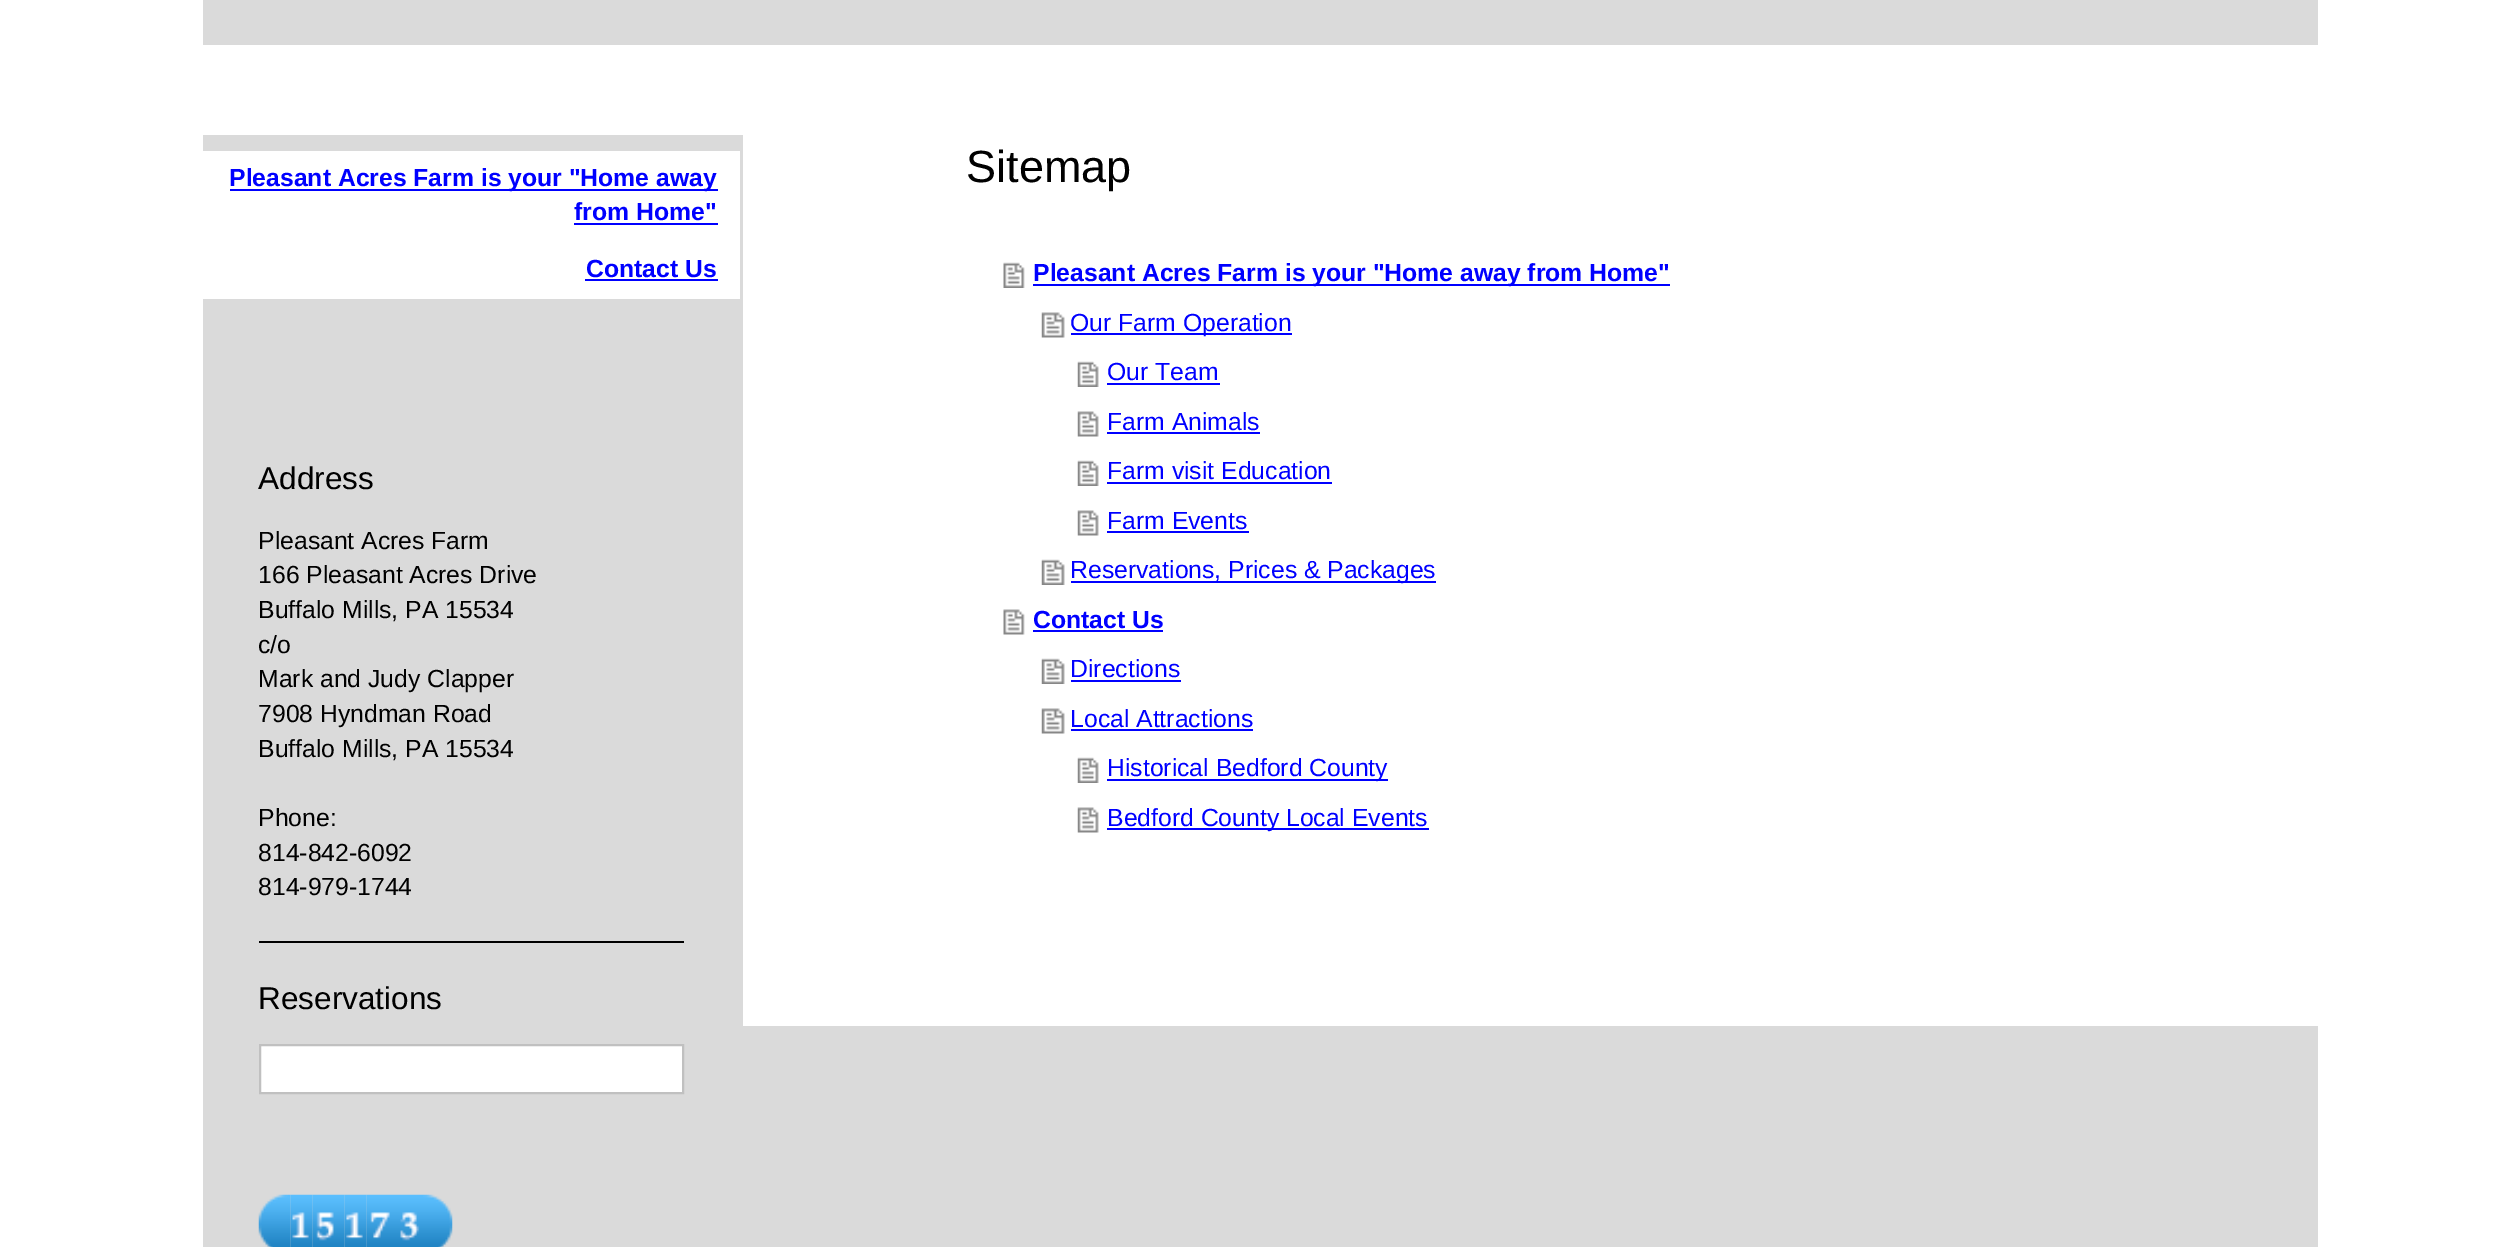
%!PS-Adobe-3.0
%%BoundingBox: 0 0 2516 1247
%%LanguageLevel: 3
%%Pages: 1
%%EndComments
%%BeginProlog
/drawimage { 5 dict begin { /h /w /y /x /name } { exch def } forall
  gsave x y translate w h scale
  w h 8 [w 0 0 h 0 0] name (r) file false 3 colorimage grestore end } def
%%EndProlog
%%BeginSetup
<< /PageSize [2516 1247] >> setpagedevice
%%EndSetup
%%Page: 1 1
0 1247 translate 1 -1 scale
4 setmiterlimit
1 setgray
0 0 2516 1247 rectfill
0.855 setgray
203 135 2115 1112 rectfill
203 0 2115 45 rectfill
1 setgray
203 151 537 148 rectfill
0 0 1 setrgbcolor
230 189 488 2 rectfill
574 223 144 2 rectfill
585 279 133 2 rectfill
0 setgray
259 941 425 2 rectfill
1 setgray
newpath 260 1045 moveto 683 1045 lineto 683 1093 lineto 260 1093 lineto closepath gsave fill grestore
0.753 setgray
2 setlinewidth
stroke
(images/1.raw) 258 1194 33 53 drawimage
(images/2.raw) 290 1194 23 53 drawimage
(images/3.raw) 312 1194 33 53 drawimage
(images/4.raw) 344 1194 23 53 drawimage
(images/5.raw) 366 1194 30 53 drawimage
(images/6.raw) 396 1194 27 53 drawimage
(images/7.raw) 423 1194 30 53 drawimage
1 setgray
743 135 1575 891 rectfill
(images/8.raw) 1003 262 22 26 drawimage
0 0 1 setrgbcolor
1033 284 637 2 rectfill
(images/9.raw) 1041 312 24 26 drawimage
1071 333 221 2 rectfill
(images/10.raw) 1077 361 22 26 drawimage
1107 383 113 2 rectfill
(images/11.raw) 1077 411 22 26 drawimage
1107 432 153 2 rectfill
(images/10.raw) 1077 460 22 26 drawimage
1107 482 225 2 rectfill
(images/11.raw) 1077 510 22 26 drawimage
1107 531 142 2 rectfill
(images/12.raw) 1041 559 24 26 drawimage
1071 581 365 2 rectfill
(images/13.raw) 1003 609 22 26 drawimage
1033 630 130 2 rectfill
(images/14.raw) 1041 658 24 26 drawimage
1071 680 110 2 rectfill
(images/9.raw) 1041 708 24 26 drawimage
1071 729 182 2 rectfill
(images/10.raw) 1077 757 22 26 drawimage
1107 779 281 2 rectfill
(images/11.raw) 1077 807 22 26 drawimage
1107 828 322 2 rectfill
/LiberationSans-Bold [24.75 0 0 -24.75 0 0] selectfont
229 186 moveto (Pleasant Acres Farm is your "Home away) show
574 220 moveto (from Home") show
586 277 moveto (Contact Us) show
/LiberationSans-Regular [31.5 0 0 -31.5 0 0] selectfont
0 setgray
258 489 moveto (Address) show
/LiberationSans-Regular [24.75 0 0 -24.75 0 0] selectfont
258 549 moveto (Pleasant Acres Farm) show
258 583 moveto (166 Pleasant Acres Drive) show
258 618 moveto (Buffalo Mills, PA 15534) show
258 653 moveto (c/o) show
258 687 moveto (Mark and Judy Clapper) show
258 722 moveto (7908 Hyndman Road) show
258 757 moveto (Buffalo Mills, PA 15534) show
258 826 moveto (Phone:) show
258 861 moveto (814-842-6092) show
258 895 moveto (814-979-1744) show
/LiberationSans-Regular [31.5 0 0 -31.5 0 0] selectfont
258 1009 moveto (Reservations) show
/LiberationSans-Regular [45 0 0 -45 0 0] selectfont
966 182 moveto (Sitemap) show
/LiberationSans-Bold [24.75 0 0 -24.75 0 0] selectfont
0 0 1 setrgbcolor
1033 281 moveto (Pleasant Acres Farm is your "Home away from Home") show
/LiberationSans-Regular [24.75 0 0 -24.75 0 0] selectfont
1070 331 moveto (Our Farm Operation) show
1107 380 moveto (Our Team) show
1107 430 moveto (Farm Animals) show
1107 479 moveto (Farm visit Education) show
1107 529 moveto (Farm Events) show
1070 578 moveto (Reservations, Prices & Packages) show
/LiberationSans-Bold [24.75 0 0 -24.75 0 0] selectfont
1033 628 moveto (Contact Us) show
/LiberationSans-Regular [24.75 0 0 -24.75 0 0] selectfont
1070 677 moveto (Directions) show
1070 727 moveto (Local Attractions) show
1107 776 moveto (Historical Bedford County) show
1107 826 moveto (Bedford County Local Events) show
showpage
%%EOF
